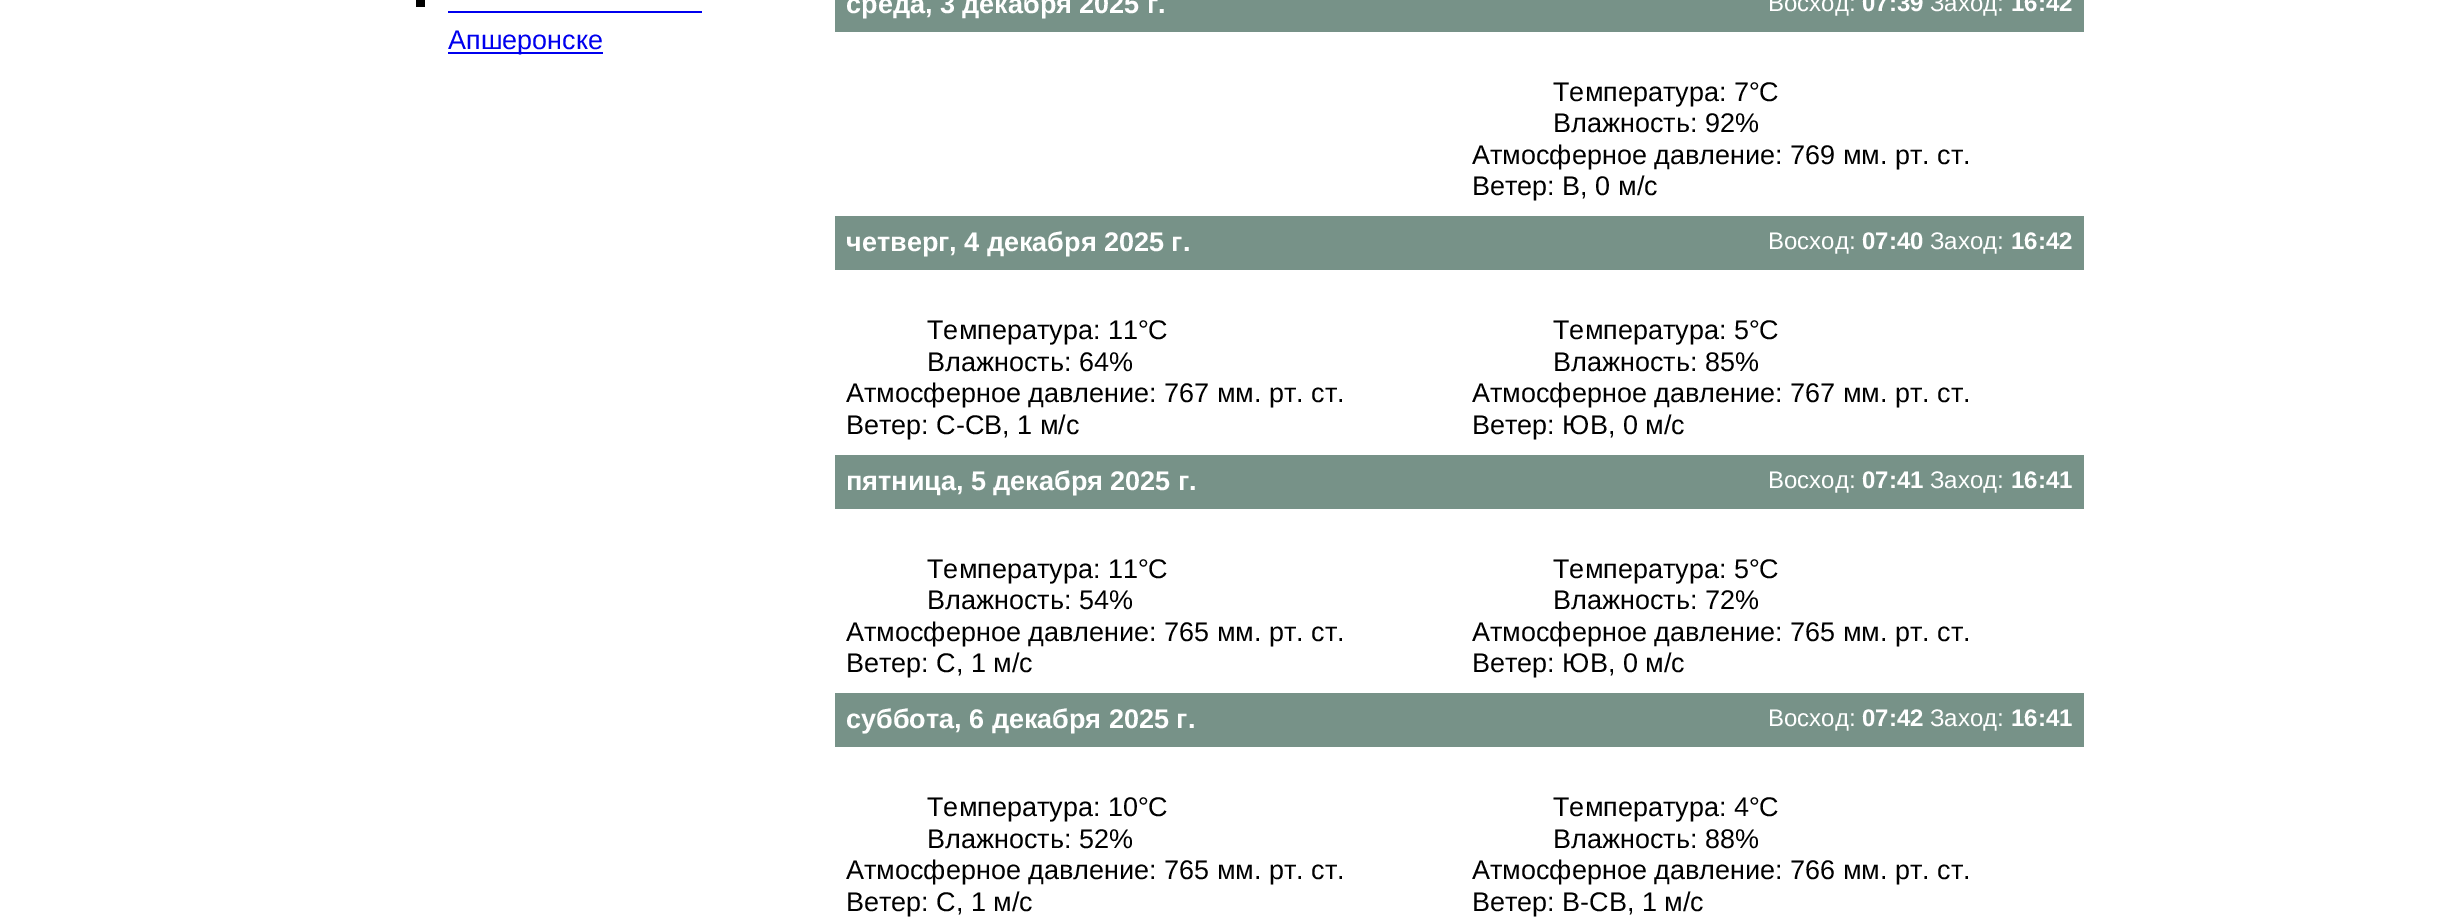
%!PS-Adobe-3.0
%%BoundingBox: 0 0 2443 921
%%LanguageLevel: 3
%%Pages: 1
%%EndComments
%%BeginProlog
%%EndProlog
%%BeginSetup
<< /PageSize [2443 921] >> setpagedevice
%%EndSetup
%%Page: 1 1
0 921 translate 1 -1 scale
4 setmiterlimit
1 setgray
0 0 2443 921 rectfill
0 setgray
416 0 9 7 rectfill
0 0 0.933 setrgbcolor
448 11 254 2 rectfill
448 52 155 2 rectfill
0.467 0.573 0.533 setrgbcolor
835 0 1249 32 rectfill
835 216 1249 54 rectfill
835 455 1249 54 rectfill
835 693 1249 54 rectfill
/LiberationSans-Regular [27 0 0 -27 0 0] selectfont
0 0 0.933 setrgbcolor
448 49 moveto (Апшеронске) show
/LiberationSans-Bold [27 0 0 -27 0 0] selectfont
1 setgray
846 13 moveto (среда, 3 декабря 2025 г.) show
/LiberationSans-Regular [24 0 0 -24 0 0] selectfont
1768 11 moveto (Восход:) show
/LiberationSans-Bold [24 0 0 -24 0 0] selectfont
1862 11 moveto (07:39) show
/LiberationSans-Regular [24 0 0 -24 0 0] selectfont
1930 11 moveto (Заход:) show
/LiberationSans-Bold [24 0 0 -24 0 0] selectfont
2011 11 moveto (16:42) show
/LiberationSans-Regular [27 0 0 -27 0 0] selectfont
0 setgray
1553 101 moveto (Температура: 7°C) show
1553 132 moveto (Влажность: 92%) show
1472 164 moveto (Атмосферное давление: 769 мм. рт. ст.) show
1472 195 moveto (Ветер: В, 0 м/с) show
/LiberationSans-Bold [27 0 0 -27 0 0] selectfont
1 setgray
846 251 moveto (четверг, 4 декабря 2025 г.) show
/LiberationSans-Regular [24 0 0 -24 0 0] selectfont
1768 249 moveto (Восход:) show
/LiberationSans-Bold [24 0 0 -24 0 0] selectfont
1862 249 moveto (07:40) show
/LiberationSans-Regular [24 0 0 -24 0 0] selectfont
1930 249 moveto (Заход:) show
/LiberationSans-Bold [24 0 0 -24 0 0] selectfont
2011 249 moveto (16:42) show
/LiberationSans-Regular [27 0 0 -27 0 0] selectfont
0 setgray
927 339 moveto (Температура: 11°C) show
927 371 moveto (Влажность: 64%) show
846 402 moveto (Атмосферное давление: 767 мм. рт. ст.) show
846 434 moveto (Ветер: С-СВ, 1 м/с) show
1553 339 moveto (Температура: 5°C) show
1553 371 moveto (Влажность: 85%) show
1472 402 moveto (Атмосферное давление: 767 мм. рт. ст.) show
1472 434 moveto (Ветер: ЮВ, 0 м/с) show
/LiberationSans-Bold [27 0 0 -27 0 0] selectfont
1 setgray
846 490 moveto (пятница, 5 декабря 2025 г.) show
/LiberationSans-Regular [24 0 0 -24 0 0] selectfont
1768 488 moveto (Восход:) show
/LiberationSans-Bold [24 0 0 -24 0 0] selectfont
1862 488 moveto (07:41) show
/LiberationSans-Regular [24 0 0 -24 0 0] selectfont
1930 488 moveto (Заход:) show
/LiberationSans-Bold [24 0 0 -24 0 0] selectfont
2011 488 moveto (16:41) show
/LiberationSans-Regular [27 0 0 -27 0 0] selectfont
0 setgray
927 578 moveto (Температура: 11°C) show
927 609 moveto (Влажность: 54%) show
846 641 moveto (Атмосферное давление: 765 мм. рт. ст.) show
846 672 moveto (Ветер: С, 1 м/с) show
1553 578 moveto (Температура: 5°C) show
1553 609 moveto (Влажность: 72%) show
1472 641 moveto (Атмосферное давление: 765 мм. рт. ст.) show
1472 672 moveto (Ветер: ЮВ, 0 м/с) show
/LiberationSans-Bold [27 0 0 -27 0 0] selectfont
1 setgray
846 728 moveto (суббота, 6 декабря 2025 г.) show
/LiberationSans-Regular [24 0 0 -24 0 0] selectfont
1768 726 moveto (Восход:) show
/LiberationSans-Bold [24 0 0 -24 0 0] selectfont
1862 726 moveto (07:42) show
/LiberationSans-Regular [24 0 0 -24 0 0] selectfont
1930 726 moveto (Заход:) show
/LiberationSans-Bold [24 0 0 -24 0 0] selectfont
2011 726 moveto (16:41) show
/LiberationSans-Regular [27 0 0 -27 0 0] selectfont
0 setgray
927 816 moveto (Температура: 10°C) show
927 848 moveto (Влажность: 52%) show
846 879 moveto (Атмосферное давление: 765 мм. рт. ст.) show
846 911 moveto (Ветер: С, 1 м/с) show
1553 816 moveto (Температура: 4°C) show
1553 848 moveto (Влажность: 88%) show
1472 879 moveto (Атмосферное давление: 766 мм. рт. ст.) show
1472 911 moveto (Ветер: В-СВ, 1 м/с) show
showpage
%%EOF
